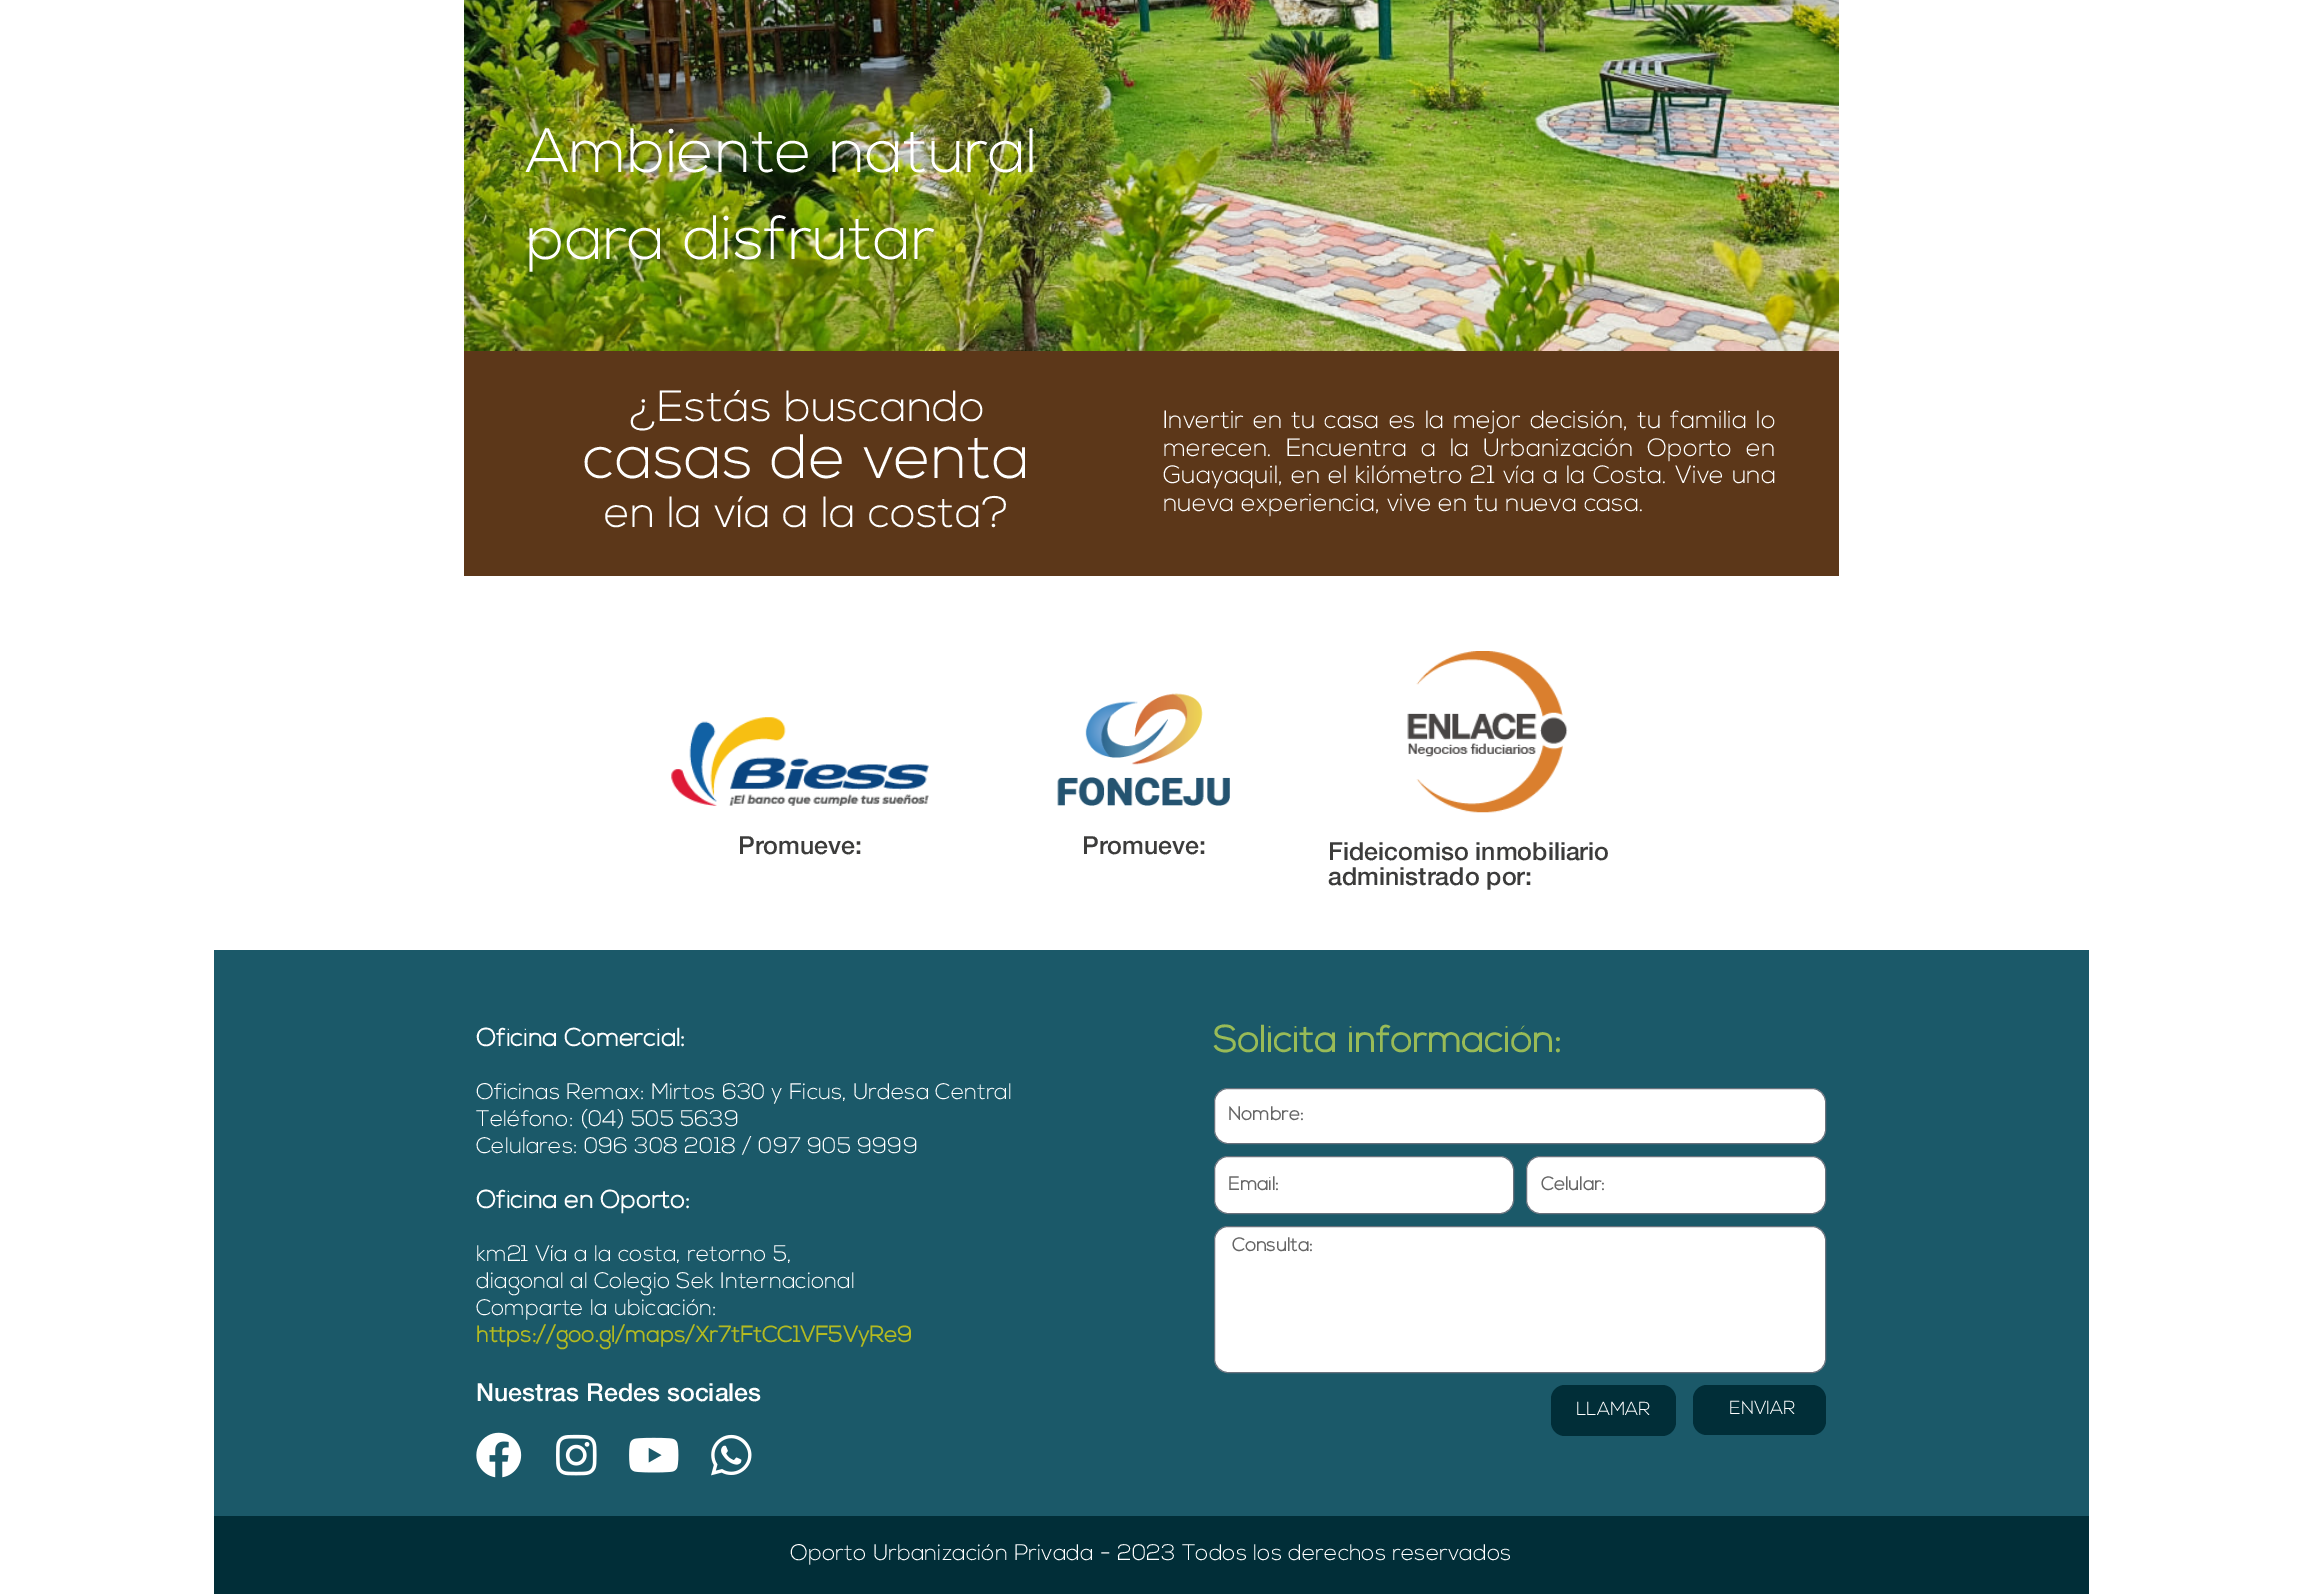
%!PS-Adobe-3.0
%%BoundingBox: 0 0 2301 1594
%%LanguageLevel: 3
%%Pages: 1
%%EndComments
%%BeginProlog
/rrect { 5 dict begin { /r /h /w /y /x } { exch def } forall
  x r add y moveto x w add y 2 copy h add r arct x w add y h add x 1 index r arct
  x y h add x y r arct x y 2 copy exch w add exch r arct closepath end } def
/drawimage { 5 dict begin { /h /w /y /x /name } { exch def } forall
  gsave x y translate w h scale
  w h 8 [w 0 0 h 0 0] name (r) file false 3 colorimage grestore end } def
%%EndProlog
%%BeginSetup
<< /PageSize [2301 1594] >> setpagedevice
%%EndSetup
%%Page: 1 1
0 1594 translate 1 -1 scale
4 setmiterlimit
1 setgray
0 0 2301 1594 rectfill
(images/1.raw) 464 0 1375 351 drawimage
0.361 0.216 0.098 setrgbcolor
464 351 1375 225 rectfill
(images/2.raw) 671 717 258 89 drawimage
(images/3.raw) 1057 693 173 113 drawimage
(images/4.raw) 1407 651 161 162 drawimage
0.106 0.349 0.412 setrgbcolor
214 950 1875 566 rectfill
(images/5.raw) 476 1432 46 46 drawimage
(images/6.raw) 556 1434 41 42 drawimage
(images/7.raw) 629 1437 50 36 drawimage
(images/8.raw) 711 1434 41 42 drawimage
1 setgray
1214.5 1088.5 611 55 13.5 rrect gsave fill grestore
0.412 0.447 0.49 setrgbcolor
stroke
1 setgray
1214.5 1156.5 299 57 13.5 rrect gsave fill grestore
0.412 0.447 0.49 setrgbcolor
stroke
1 setgray
1526.5 1156.5 299 57 13.5 rrect gsave fill grestore
0.412 0.447 0.49 setrgbcolor
stroke
1 setgray
1214.5 1226.5 611 146 13.5 rrect gsave fill grestore
0.412 0.447 0.49 setrgbcolor
stroke
0.004 0.18 0.22 setrgbcolor
1693 1385 133 50 14 rrect fill
1551 1385 125 51 14 rrect fill
214 1516 1875 78 rectfill
/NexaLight-Light [62.5 0 0 -62.5 0 0] selectfont
1 setgray
526 172 moveto (Ambiente natural) show
526 259 moveto (para disfrutar) show
/NexaLight-Light [43.75 0 0 -43.75 0 0] selectfont
629 421 moveto (¿Estás buscando) show
/NexaLight-Light [62.5 0 0 -62.5 0 0] selectfont
583 478 moveto (casas de venta) show
/NexaLight-Light [43.75 0 0 -43.75 0 0] selectfont
604 527 moveto (en la vía a la costa?) show
/NexaLight-Light [25 0 0 -25 0 0] selectfont
1163 428 moveto 2 0 32 (Invertir en tu casa es la mejor decisión, tu familia lo) widthshow
1163 456 moveto 7 0 32 (merecen. Encuentra a la Urbanización Oporto en) widthshow
1163 483 moveto 0.9 0 32 (Guayaquil, en el kilómetro 21 vía a la Costa. Vive una) widthshow
1163 511 moveto (nueva experiencia, vive en tu nueva casa.) show
/HelveticaNeue-Medium [25 0 0 -25 0 0] selectfont
0.235 0.235 0.231 setrgbcolor
738 854 moveto (Promueve:) show
1082 854 moveto (Promueve:) show
1328 860 moveto (Fideicomiso inmobiliario) show
1328 885 moveto (administrado por:) show
/NexaLight-Bold [25 0 0 -25 0 0] selectfont
1 setgray
476 1046 moveto (Oficina Comercial:) show
/NexaLight-Light [22.5 0 0 -22.5 0 0] selectfont
476 1099 moveto (Oficinas Remax: Mirtos 630 y Ficus, Urdesa Central) show
476 1126 moveto (Teléfono: \(04\) 505 5639) show
476 1153 moveto (Celulares: 096 308 2018 / 097 905 9999) show
/NexaLight-Bold [25 0 0 -25 0 0] selectfont
476 1208 moveto (Oficina en Oporto:) show
/NexaLight-Light [22.5 0 0 -22.5 0 0] selectfont
476 1261 moveto (km21 Vía a la costa, retorno 5,) show
476 1288 moveto (diagonal al Colegio Sek Internacional) show
476 1315 moveto (Comparte la ubicación:) show
/NexaLight-Bold [22.5 0 0 -22.5 0 0] selectfont
0.702 0.729 0.129 setrgbcolor
476 1342 moveto (https://goo.gl/maps/Xr7tFtCC1VF5VyRe9) show
/HelveticaNeue-Medium [25 0 0 -25 0 0] selectfont
1 setgray
476 1401 moveto (Nuestras Redes sociales) show
/NexaLight-Bold [37.5 0 0 -37.5 0 0] selectfont
0.6 0.733 0.341 setrgbcolor
1213 1052 moveto (Solicita información:) show
/NexaLight-Bold [18.75 0 0 -18.75 0 0] selectfont
0.4 setgray
1228 1120 moveto (Nombre:) show
1228 1190 moveto (Email:) show
1541 1190 moveto (Celular:) show
1232 1251 moveto (Consulta:) show
/NexaLight-Light [18.75 0 0 -18.75 0 0] selectfont
1 setgray
1729 1414 moveto (ENVIAR) show
1576 1415 moveto (LLAMAR) show
/NexaLight-Light [22.5 0 0 -22.5 0 0] selectfont
790 1560 moveto (Oporto Urbanización Privada - 2023 Todos los derechos reservados) show
showpage
%%EOF
